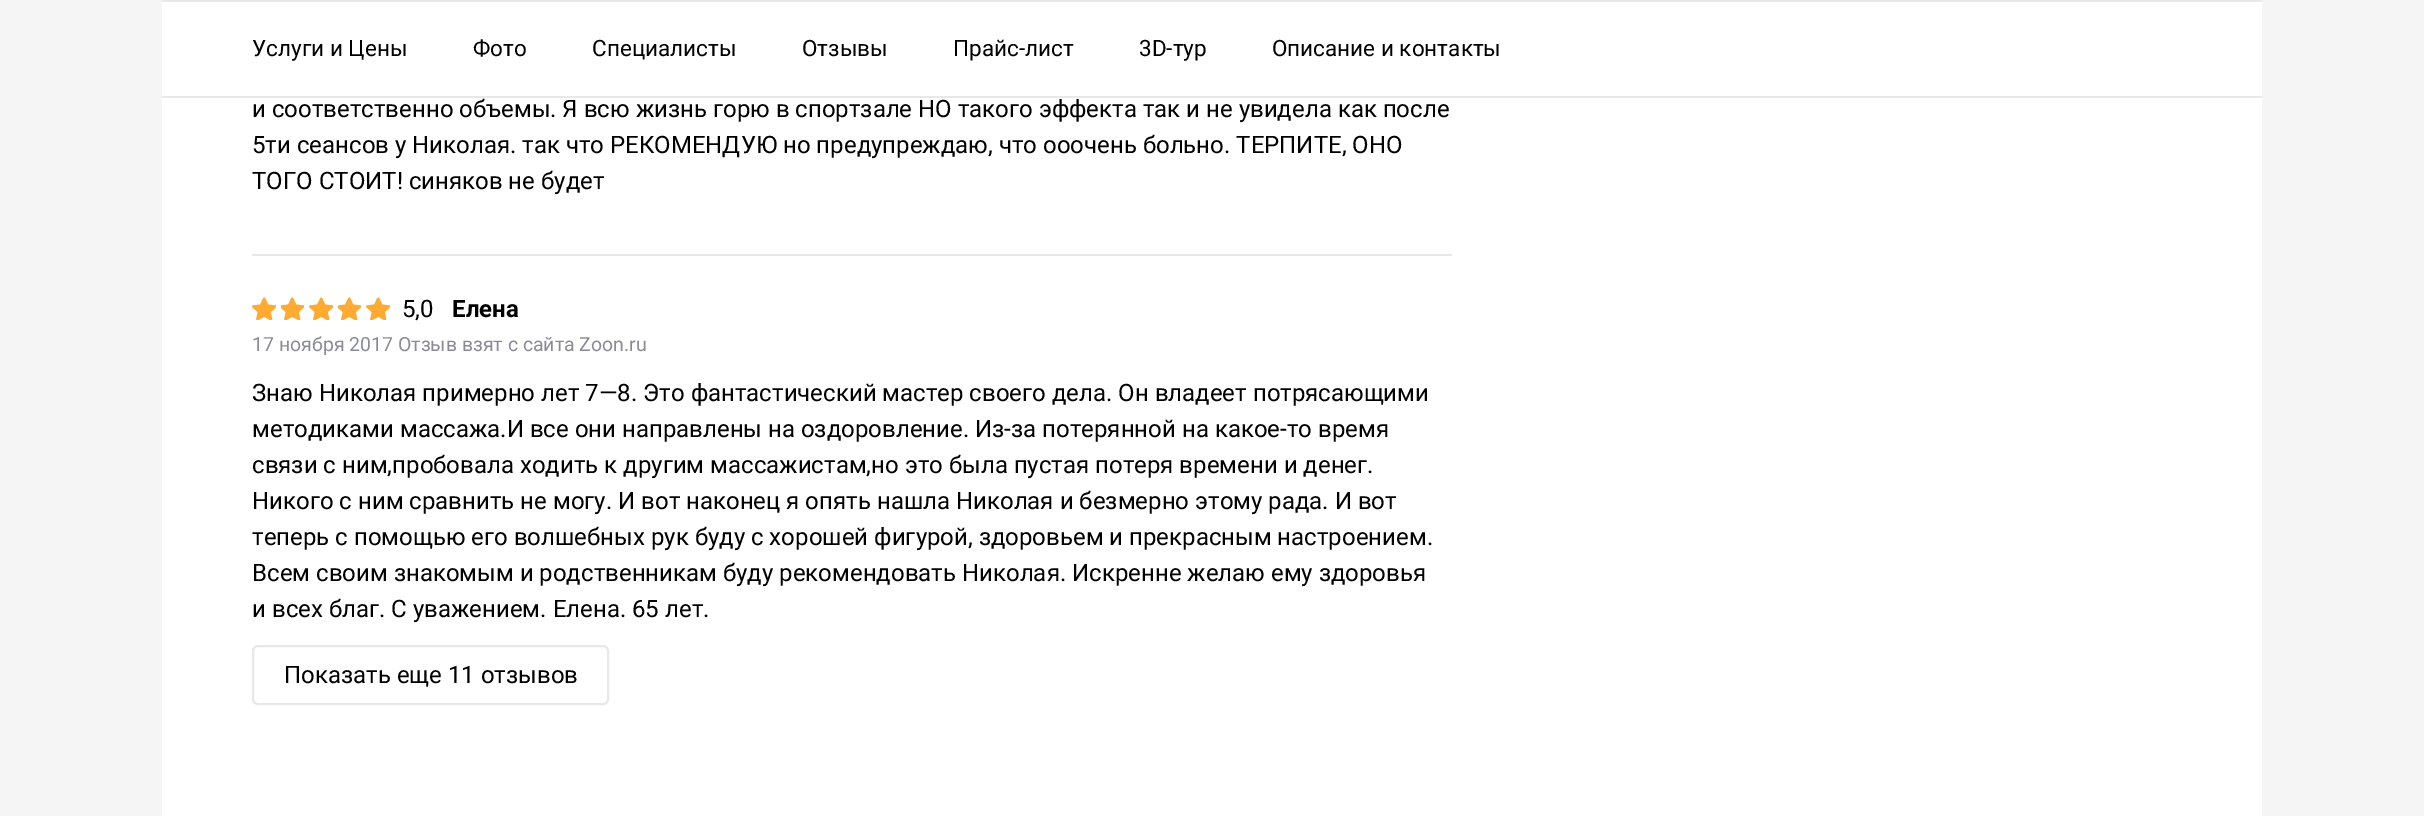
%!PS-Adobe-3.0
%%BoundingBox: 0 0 2424 816
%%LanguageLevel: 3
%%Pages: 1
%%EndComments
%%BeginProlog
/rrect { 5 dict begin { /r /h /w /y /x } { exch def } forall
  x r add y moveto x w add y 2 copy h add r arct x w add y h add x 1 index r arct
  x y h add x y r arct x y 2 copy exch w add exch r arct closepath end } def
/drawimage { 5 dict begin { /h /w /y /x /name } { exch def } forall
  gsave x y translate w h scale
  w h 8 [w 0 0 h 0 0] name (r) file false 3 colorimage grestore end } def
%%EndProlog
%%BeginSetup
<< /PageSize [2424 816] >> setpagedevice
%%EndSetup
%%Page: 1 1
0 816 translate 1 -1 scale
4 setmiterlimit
0.961 setgray
0 0 2424 816 rectfill
1 setgray
162 98 2100 718 rectfill
0.91 setgray
162 0 2100 2 rectfill
162 96 2100 2 rectfill
1 setgray
162 2 2100 94 rectfill
0.91 setgray
252 254 1200 2 rectfill
(images/1.raw) 252 297 138 23 drawimage
(images/2.raw) 252 296 138 25 drawimage
2 setlinewidth
253 646 355 58 5 rrect stroke
/Roboto-Regular [22.5 0 0 -22.5 0 0] selectfont
0 setgray
252 56 moveto (Услуги и Цены) show
473 56 moveto (Фото) show
592 56 moveto (Специалисты) show
802 56 moveto (Отзывы) show
953 56 moveto (Прайс-лист) show
1139 56 moveto (3D-тур) show
1272 56 moveto (Описание и контакты) show
/Roboto-Regular [24 0 0 -24 0 0] selectfont
252 117 moveto (и соответственно объемы. Я всю жизнь горю в спортзале НО такого эффекта так и не увидела как после) show
252 153 moveto (5ти сеансов у Николая. так что РЕКОМЕНДУЮ но предупреждаю, что ооочень больно. ТЕРПИТЕ, ОНО) show
252 189 moveto (ТОГО СТОИТ! синяков не будет) show
402 317 moveto (5,0) show
/Roboto-Bold [24 0 0 -24 0 0] selectfont
452 317 moveto (Елена) show
/Roboto-Regular [19.5 0 0 -19.5 0 0] selectfont
0.545 0.545 0.596 setrgbcolor
252 351 moveto (17 ноября 2017 Отзыв взят с сайта Zoon.ru) show
/Roboto-Regular [24 0 0 -24 0 0] selectfont
0 setgray
252 401 moveto (Знаю Николая примерно лет 7—8. Это фантастический мастер своего дела. Он владеет потрясающими) show
252 437 moveto (методиками массажа.И все они направлены на оздоровление. Из-за потерянной на какое-то время) show
252 473 moveto (связи с ним,пробовала ходить к другим массажистам,но это была пустая потеря времени и денег.) show
252 509 moveto (Никого с ним сравнить не могу. И вот наконец я опять нашла Николая и безмерно этому рада. И вот) show
252 545 moveto (теперь с помощью его волшебных рук буду с хорошей фигурой, здоровьем и прекрасным настроением.) show
252 581 moveto (Всем своим знакомым и родственникам буду рекомендовать Николая. Искренне желаю ему здоровья) show
252 617 moveto (и всех благ. С уважением. Елена. 65 лет.) show
284 683 moveto (Показать еще 11 отзывов) show
showpage
%%EOF
